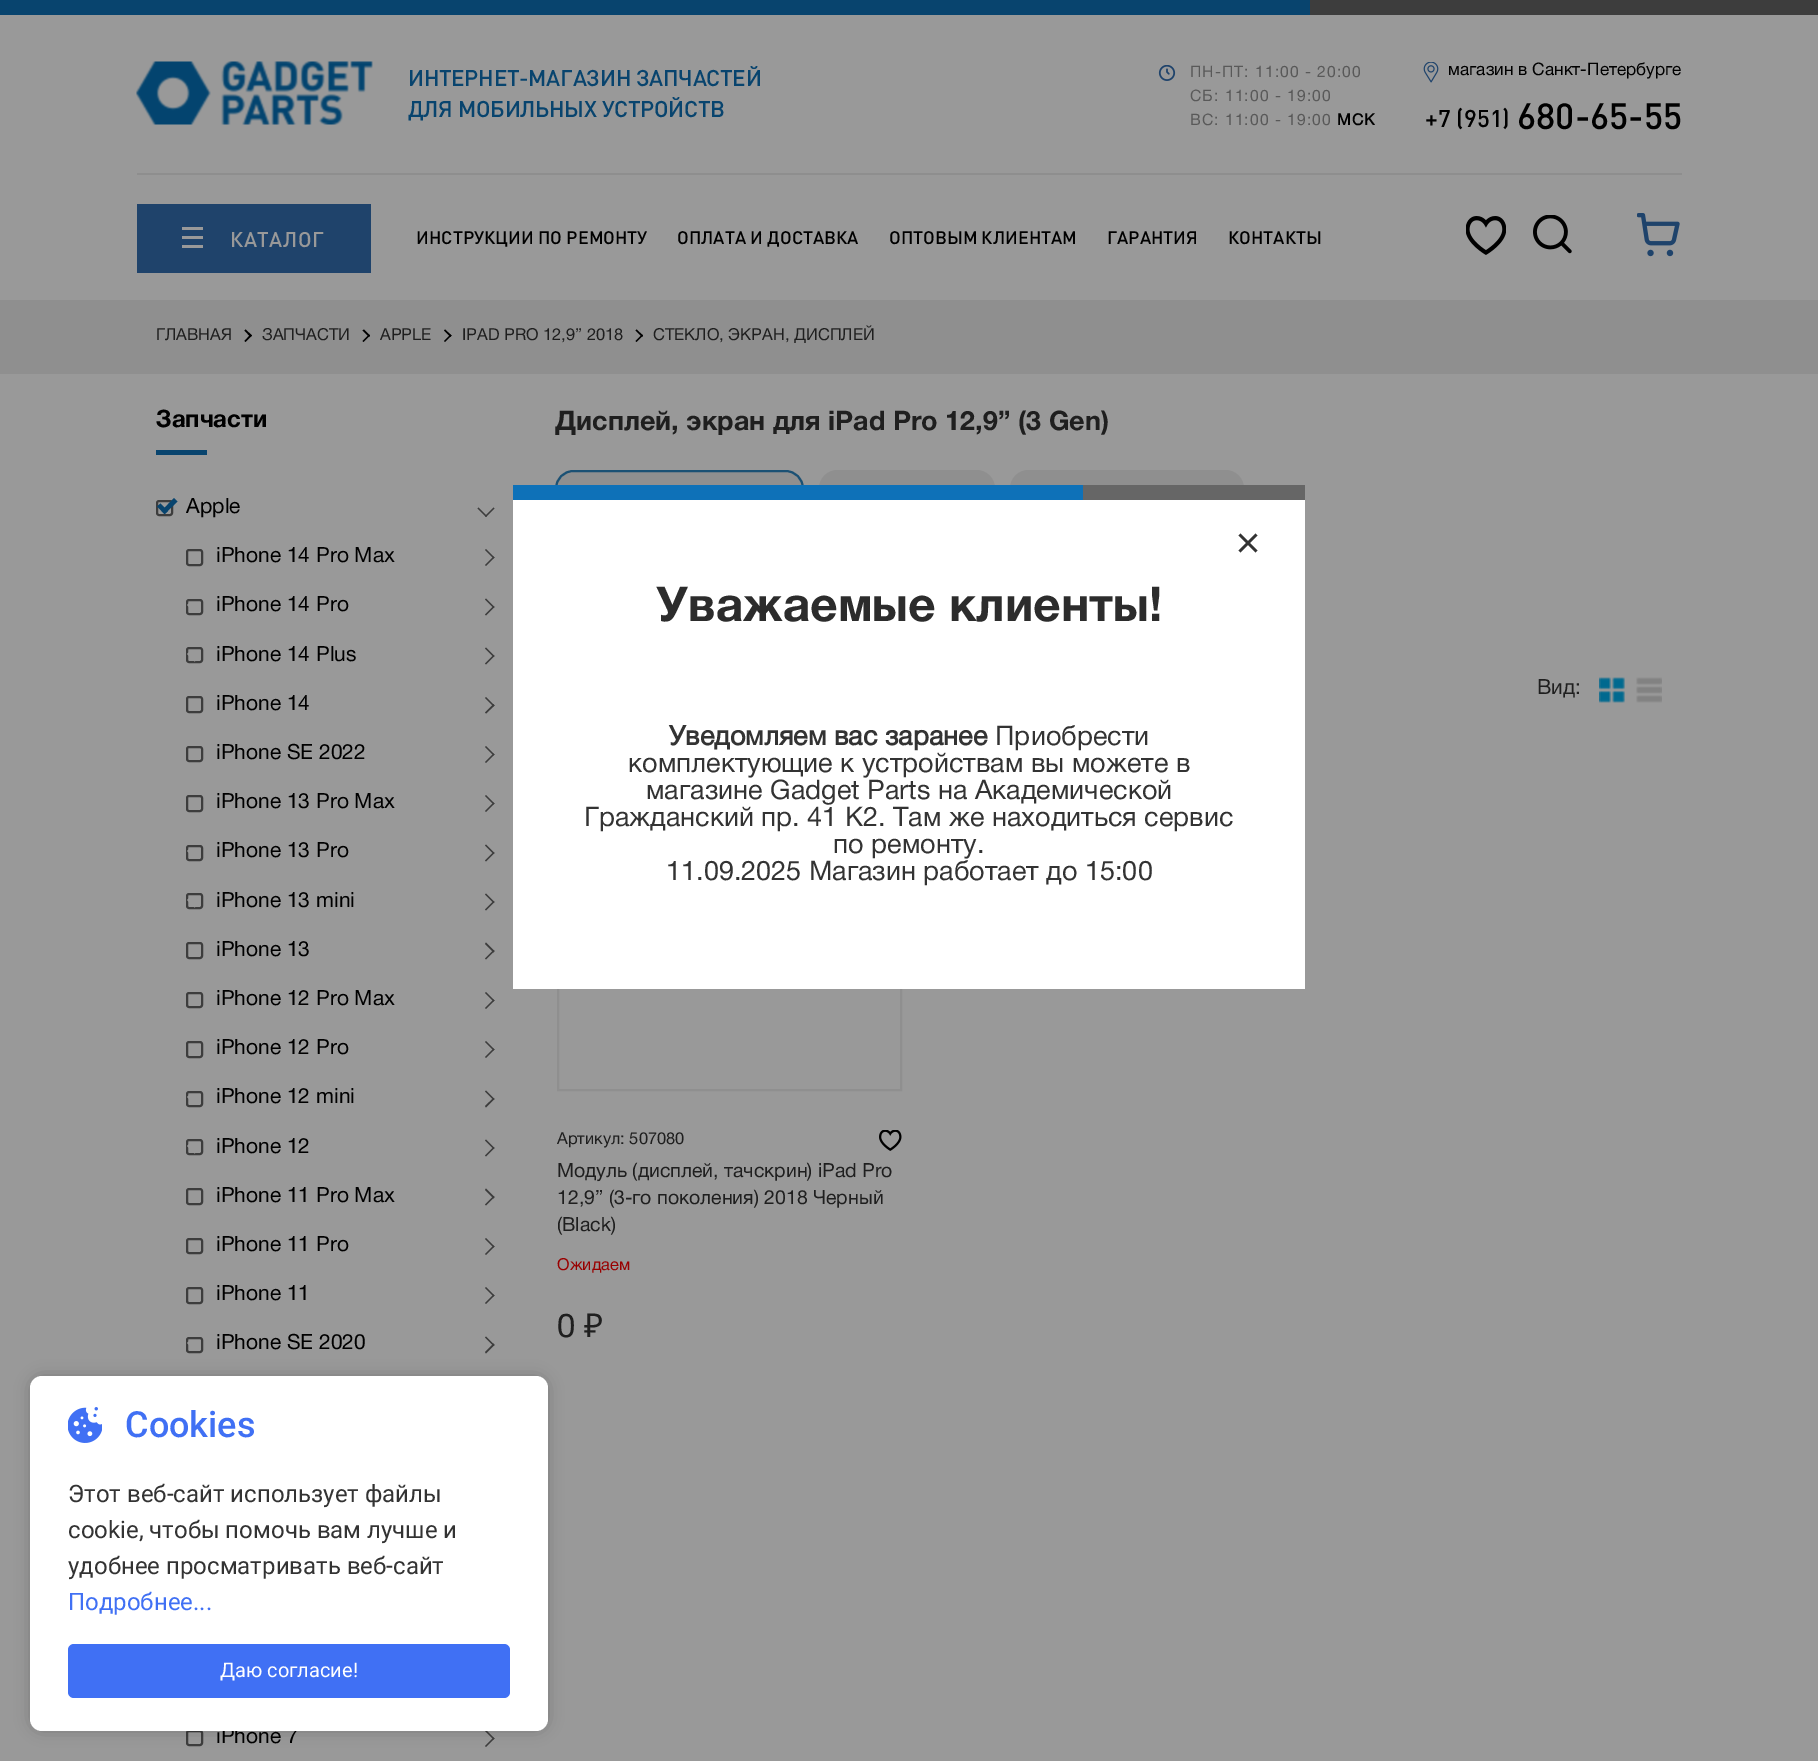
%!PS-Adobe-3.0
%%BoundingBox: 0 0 1818 1761
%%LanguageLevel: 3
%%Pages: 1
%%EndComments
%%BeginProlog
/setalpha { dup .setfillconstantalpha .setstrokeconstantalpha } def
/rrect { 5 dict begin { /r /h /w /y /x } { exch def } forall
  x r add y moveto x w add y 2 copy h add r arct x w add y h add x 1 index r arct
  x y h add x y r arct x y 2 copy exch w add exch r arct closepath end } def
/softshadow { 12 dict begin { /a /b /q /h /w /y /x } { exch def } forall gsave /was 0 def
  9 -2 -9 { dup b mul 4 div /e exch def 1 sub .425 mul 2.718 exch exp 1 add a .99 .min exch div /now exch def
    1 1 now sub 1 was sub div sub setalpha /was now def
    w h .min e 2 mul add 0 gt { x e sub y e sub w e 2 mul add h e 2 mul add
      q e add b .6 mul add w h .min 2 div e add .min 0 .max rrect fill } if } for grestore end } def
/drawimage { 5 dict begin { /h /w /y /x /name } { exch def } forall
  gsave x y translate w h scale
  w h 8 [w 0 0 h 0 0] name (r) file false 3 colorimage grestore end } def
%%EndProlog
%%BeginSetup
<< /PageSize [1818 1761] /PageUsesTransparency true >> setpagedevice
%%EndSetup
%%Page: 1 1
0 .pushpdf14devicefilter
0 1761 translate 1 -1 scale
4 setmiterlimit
0.6 setgray
0 0 1818 1761 rectfill
0.031 0.267 0.431 setrgbcolor
0 0 1310 15 rectfill
0.239 setgray
1310 0 508 15 rectfill
(images/1.raw) 136 61 237 64 drawimage
(images/2.raw) 1158 65 18 16 drawimage
(images/3.raw) 1423 62 16 21 drawimage
0.557 setgray
137 173 1545 2 rectfill
0.122 0.263 0.42 setrgbcolor
137 204 234 69 rectfill
0.6 setgray
182 236 21 3 rectfill
182 227 21 3 rectfill
182 245 21 3 rectfill
(images/4.raw) 1466 216 40 39 drawimage
(images/5.raw) 1533 215 39 39 drawimage
(images/6.raw) 1637 213 43 44 drawimage
0.561 setgray
0 300 1818 74 rectfill
0 setgray
newpath 244.5 330.5 moveto 245.5 329.5 lineto 252 335.5 lineto 250.5 337 lineto closepath fill
newpath 244.5 341 moveto 250.5 334.5 lineto 252 335.5 lineto 245.5 342 lineto closepath fill
newpath 362.5 330.5 moveto 364 329.5 lineto 370 335.5 lineto 369 337 lineto closepath fill
newpath 362.5 341 moveto 369 334.5 lineto 370 335.5 lineto 363.5 342 lineto closepath fill
newpath 444 330.5 moveto 445 329.5 lineto 451.5 335.5 lineto 450.5 337 lineto closepath fill
newpath 444 341 moveto 450.5 334.5 lineto 451.5 335.5 lineto 445 342 lineto closepath fill
newpath 635.5 330.5 moveto 636.5 329.5 lineto 643 335.5 lineto 642 337 lineto closepath fill
newpath 635.5 341 moveto 642 334.5 lineto 643 335.5 lineto 636.5 342 lineto closepath fill
0.031 0.267 0.431 setrgbcolor
156 450 51 5 rectfill
0.239 setgray
2 setlinewidth
157 501 15 14 2 rrect stroke
0.031 0.267 0.431 setrgbcolor
newpath 174 498 moveto 177.5 501.5 lineto 164.5 514 lineto 161.5 511 lineto closepath fill
newpath 160.5 503.5 moveto 168 511 lineto 164.5 514 lineto 157 506.5 lineto closepath fill
0.239 setgray
newpath 493.5 507.5 moveto 494.5 508.5 lineto 486 517 lineto 485 516 lineto closepath fill
newpath 478.5 507.5 moveto 487 516 lineto 486 517 lineto 477.5 508.5 lineto closepath fill
187 550 15 15 2 rrect stroke
newpath 485 550 moveto 486 549 lineto 494.5 557.5 lineto 493.5 558.5 lineto closepath fill
newpath 485 565 moveto 493.5 556.5 lineto 494.5 557.5 lineto 486 566 lineto closepath fill
187 600 15 14 2 rrect stroke
0.6 setgray
newpath 190.5 602 moveto 198 609.5 lineto 194.5 612.5 lineto 187 605 lineto closepath fill
0.239 setgray
newpath 485 599.5 moveto 486 598.5 lineto 494.5 607 lineto 493.5 608 lineto closepath fill
newpath 485 614.5 moveto 493.5 606 lineto 494.5 607 lineto 486 615.5 lineto closepath fill
187 648 15 14 2 rrect stroke
0.6 setgray
newpath 190.5 651 moveto 198 658.5 lineto 194.5 661.5 lineto 187 654 lineto closepath fill
0.239 setgray
newpath 485 648.5 moveto 486 647.5 lineto 494.5 656 lineto 493.5 657 lineto closepath fill
newpath 485 663.5 moveto 493.5 655 lineto 494.5 656 lineto 486 664.5 lineto closepath fill
187 697 15 15 2 rrect stroke
newpath 485 698 moveto 486 697 lineto 494.5 705.5 lineto 493.5 706.5 lineto closepath fill
newpath 485 712.5 moveto 493.5 704 lineto 494.5 705.5 lineto 486 713.5 lineto closepath fill
187 747 15 14 2 rrect stroke
newpath 485 747 moveto 486 746 lineto 494.5 754.5 lineto 493.5 755.5 lineto closepath fill
newpath 485 762 moveto 493.5 753.5 lineto 494.5 754.5 lineto 486 763 lineto closepath fill
187 796 15 15 2 rrect stroke
newpath 485 796 moveto 486 795 lineto 494.5 803.5 lineto 493.5 804.5 lineto closepath fill
newpath 485 811 moveto 493.5 802.5 lineto 494.5 803.5 lineto 486 812 lineto closepath fill
187 846 15 14 2 rrect stroke
0.6 setgray
newpath 190.5 848 moveto 198 855 lineto 194.5 858.5 lineto 187 851 lineto closepath fill
0.239 setgray
newpath 485 845.5 moveto 486 844.5 lineto 494.5 853 lineto 493.5 854 lineto closepath fill
newpath 485 860.5 moveto 493.5 852 lineto 494.5 853 lineto 486 861.5 lineto closepath fill
187 894 15 14 2 rrect stroke
0.6 setgray
newpath 190.5 897 moveto 198 904.5 lineto 194.5 907.5 lineto 187 900 lineto closepath fill
0.239 setgray
newpath 485 894.5 moveto 486 893.5 lineto 494.5 902 lineto 493.5 903 lineto closepath fill
newpath 485 909.5 moveto 493.5 901 lineto 494.5 902 lineto 486 910.5 lineto closepath fill
187 943 15 15 2 rrect stroke
newpath 485 944 moveto 486 942.5 lineto 494.5 951 lineto 493.5 952.5 lineto closepath fill
newpath 485 958.5 moveto 493.5 950 lineto 494.5 951 lineto 486 959.5 lineto closepath fill
187 993 15 14 2 rrect stroke
newpath 485 993 moveto 486 992 lineto 494.5 1000.5 lineto 493.5 1001.5 lineto closepath fill
newpath 485 1008 moveto 493.5 999.5 lineto 494.5 1000.5 lineto 486 1009 lineto closepath fill
187 1042 15 15 2 rrect stroke
newpath 485 1042 moveto 486 1041 lineto 494.5 1049.5 lineto 493.5 1050.5 lineto closepath fill
newpath 485 1057 moveto 493.5 1048.5 lineto 494.5 1049.5 lineto 486 1058 lineto closepath fill
187 1092 15 14 2 rrect stroke
0.6 setgray
newpath 190.5 1094 moveto 198 1101 lineto 194.5 1104.5 lineto 187 1097 lineto closepath fill
0.239 setgray
newpath 485 1091.5 moveto 486 1090.5 lineto 494.5 1099 lineto 493.5 1100 lineto closepath fill
newpath 485 1106 moveto 493.5 1098 lineto 494.5 1099 lineto 486 1107.5 lineto closepath fill
187 1140 15 14 2 rrect stroke
0.6 setgray
newpath 190.5 1143 moveto 198 1150.5 lineto 194.5 1153.5 lineto 187 1146 lineto closepath fill
0.239 setgray
newpath 485 1140.5 moveto 486 1139.5 lineto 494.5 1148 lineto 493.5 1149 lineto closepath fill
newpath 485 1155.5 moveto 493.5 1147 lineto 494.5 1148 lineto 486 1156.5 lineto closepath fill
187 1189 15 15 2 rrect stroke
newpath 485 1190 moveto 486 1188.5 lineto 494.5 1197 lineto 493.5 1198.5 lineto closepath fill
newpath 485 1204.5 moveto 493.5 1196 lineto 494.5 1197 lineto 486 1205.5 lineto closepath fill
187 1239 15 14 2 rrect stroke
newpath 485 1239 moveto 486 1238 lineto 494.5 1246.5 lineto 493.5 1247.5 lineto closepath fill
newpath 485 1254 moveto 493.5 1245.5 lineto 494.5 1246.5 lineto 486 1255 lineto closepath fill
187 1288 15 15 2 rrect stroke
newpath 485 1288 moveto 486 1287 lineto 494.5 1295.5 lineto 493.5 1296.5 lineto closepath fill
newpath 485 1303 moveto 493.5 1294.5 lineto 494.5 1295.5 lineto 486 1304 lineto closepath fill
187 1338 15 14 2 rrect stroke
0.6 setgray
newpath 190.5 1340 moveto 198 1347 lineto 194.5 1350.5 lineto 187 1343 lineto closepath fill
0.239 setgray
newpath 485 1337.5 moveto 486 1336.5 lineto 494.5 1345 lineto 493.5 1346 lineto closepath fill
newpath 485 1352 moveto 493.5 1343.5 lineto 494.5 1345 lineto 486 1353.5 lineto closepath fill
187 1731 15 14 2 rrect stroke
newpath 485 1731 moveto 486 1730 lineto 494.5 1738.5 lineto 493.5 1739.5 lineto closepath fill
newpath 485 1746 moveto 493.5 1737.5 lineto 494.5 1738.5 lineto 486 1747 lineto closepath fill
0.561 setgray
555 470 249 37 18.5 rrect fill
0.83 setalpha
0.012 0.267 0.435 setrgbcolor
556 471 247 35 17.5 rrect stroke
1 setalpha
0.561 setgray
819 470 176 37 18.5 rrect fill
1010 470 234 37 18.5 rrect fill
(images/7.raw) 1599 677 63 26 drawimage
558 747 343 343 rectstroke
(images/8.raw) 879 1130 23 21 drawimage
1 setgray
513 500 792 489 rectfill
0.055 0.443 0.722 setrgbcolor
513 485 570 15 rectfill
0.4 setgray
1083 485 222 15 rectfill
0.2 setgray
newpath 1240.5 533.5 moveto 1257.5 550.5 lineto 1255.5 552.5 lineto 1238.5 535.5 lineto closepath fill
newpath 1238.5 550.5 moveto 1255.5 533.5 lineto 1257.5 535.5 lineto 1240.5 552.5 lineto closepath fill
0 setgray
30 1376 518 355 12 7.5 0.2 softshadow
/DIN-Medium [22.5 0 0 -22.5 0 0] selectfont
0.031 0.267 0.431 setrgbcolor
408 86 moveto -0.3 0 (ИНТЕРНЕТ-МАГАЗИН ЗАПЧАСТЕЙ) ashow
408 117 moveto -0.3 0 (ДЛЯ МОБИЛЬНЫХ УСТРОЙСТВ) ashow
/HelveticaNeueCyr-Regular [15.75 0 0 -15.75 0 0] selectfont
0.349 setgray
1190 77 moveto 1 0 (ПН-ПТ: 11:00 - 20:00) ashow
1190 101 moveto 1 0 (СБ: 11:00 - 19:00) ashow
1190 125 moveto 1 0 (ВС: 11:00 - 19:00) ashow
/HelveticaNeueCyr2-Bold [15.75 0 0 -15.75 0 0] selectfont
0 setgray
1337 125 moveto 1 0 (МСК) ashow
/HelveticaNeueCyr-Regular [17.25 0 0 -17.25 0 0] selectfont
1448 75 moveto (магазин в Санкт-Петербурге) show
/DIN-Medium [24 0 0 -24 0 0] selectfont
1425 127 moveto (+7 \(951\)) show
/DIN-Medium [36 0 0 -36 0 0] selectfont
1517 129 moveto (680-65-55) show
/DIN-Medium [21 0 0 -21 0 0] selectfont
0.6 setgray
230 247 moveto 0.5 0 (КАТАЛОГ) ashow
/DIN-Medium [18 0 0 -18 0 0] selectfont
0 setgray
416 244 moveto (ИНСТРУКЦИИ ПО РЕМОНТУ) show
677 244 moveto (ОПЛАТА И ДОСТАВКА) show
889 244 moveto (ОПТОВЫМ КЛИЕНТАМ) show
1107 244 moveto (ГАРАНТИЯ) show
1228 244 moveto (КОНТАКТЫ) show
/HelveticaNeueCyr-Regular [16.5 0 0 -16.5 0 0] selectfont
0.122 setgray
156 340 moveto (ГЛАВНАЯ) show
262 340 moveto (ЗАПЧАСТИ) show
380 340 moveto (APPLE) show
462 340 moveto (IPAD PRO 12,9” 2018) show
653 340 moveto (СТЕКЛО, ЭКРАН, ДИСПЛЕЙ) show
/HelveticaNeueCyr-Bold [24 0 0 -24 0 0] selectfont
0 setgray
156 427 moveto (Запчасти) show
/HelveticaNeueCyr-Regular [21 0 0 -21 0 0] selectfont
186 513 moveto (Apple) show
216 562 moveto (iPhone 14 Pro Max) show
216 611 moveto (iPhone 14 Pro) show
216 661 moveto (iPhone 14 Plus) show
216 710 moveto (iPhone 14) show
216 759 moveto (iPhone SE 2022) show
216 808 moveto (iPhone 13 Pro Max) show
216 857 moveto (iPhone 13 Pro) show
216 907 moveto (iPhone 13 mini) show
216 956 moveto (iPhone 13) show
216 1005 moveto (iPhone 12 Pro Max) show
216 1054 moveto (iPhone 12 Pro) show
216 1103 moveto (iPhone 12 mini) show
216 1153 moveto (iPhone 12) show
216 1202 moveto (iPhone 11 Pro Max) show
216 1251 moveto (iPhone 11 Pro) show
216 1300 moveto (iPhone 11) show
216 1349 moveto (iPhone SE 2020) show
216 1743 moveto (iPhone 7) show
/HelveticaNeueCyr-Bold [27 0 0 -27 0 0] selectfont
0.122 setgray
555 430 moveto (Дисплей, экран для iPad Pro 12,9” \(3 Gen\)) show
/HelveticaNeueCyr-Regular [21 0 0 -21 0 0] selectfont
1537 694 moveto (Вид:) show
/HelveticaNeueCyr-Regular [16.5 0 0 -16.5 0 0] selectfont
557 1144 moveto (Артикул: 507080) show
/HelveticaNeueCyr-Regular [19.5 0 0 -19.5 0 0] selectfont
557 1177 moveto (Модуль \(дисплей, тачскрин\) iPad Pro) show
557 1204 moveto (12,9” \(3-го поколения\) 2018 Черный) show
557 1231 moveto (\(Black\)) show
/HelveticaNeueCyr-Regular [16.5 0 0 -16.5 0 0] selectfont
0.6 0 0 setrgbcolor
557 1270 moveto (Ожидаем) show
/HelveticaNeueCyr-Regular [33 0 0 -33 0 0] selectfont
0.122 setgray
557 1337 moveto (0) show
/NotoSans-Regular [33 0 0 -33 0 0] selectfont
584 1337 moveto (₽) show
/HelveticaNeueCyr-Bold [48 0 0 -48 0 0] selectfont
0.173 setgray
656 621 moveto (Уважаемые клиенты!) show
/HelveticaNeueCyr2-Bold [27 0 0 -27 0 0] selectfont
0.2 setgray
669 745 moveto (Уведомляем вас заранее) show
/HelveticaNeueCyr-Regular [27 0 0 -27 0 0] selectfont
995 745 moveto (Приобрести) show
628 772 moveto (комплектующие к устройствам вы можете в) show
646 799 moveto (магазине Gadget Parts на Академической) show
584 826 moveto (Гражданский пр. 41 К2. Там же находиться сервис) show
833 853 moveto (по ремонту.) show
666 880 moveto (11.09.2025 Магазин работает до 15:00) show
1 setgray
30 1376 518 355 12 rrect fill
(images/9.raw) 68 1407 34 36 drawimage
/Roboto-Medium [36 0 0 -36 0 0] selectfont
0.251 0.439 0.957 setrgbcolor
125 1437 moveto (Cookies) show
/Roboto-Regular [24 0 0 -24 0 0] selectfont
0.2 setgray
68 1502 moveto (Этот веб-сайт использует файлы) show
68 1538 moveto (cookie, чтобы помочь вам лучше и) show
68 1574 moveto (удобнее просматривать веб-сайт) show
0.251 0.439 0.957 setrgbcolor
68 1610 moveto (Подробнее...) show
68 1644 442 54 6 rrect fill
/Roboto-Regular [20 0 0 -20 0 0] selectfont
1 setgray
220 1677 moveto (Даю согласие!) show
.poppdf14devicefilter showpage
%%EOF
